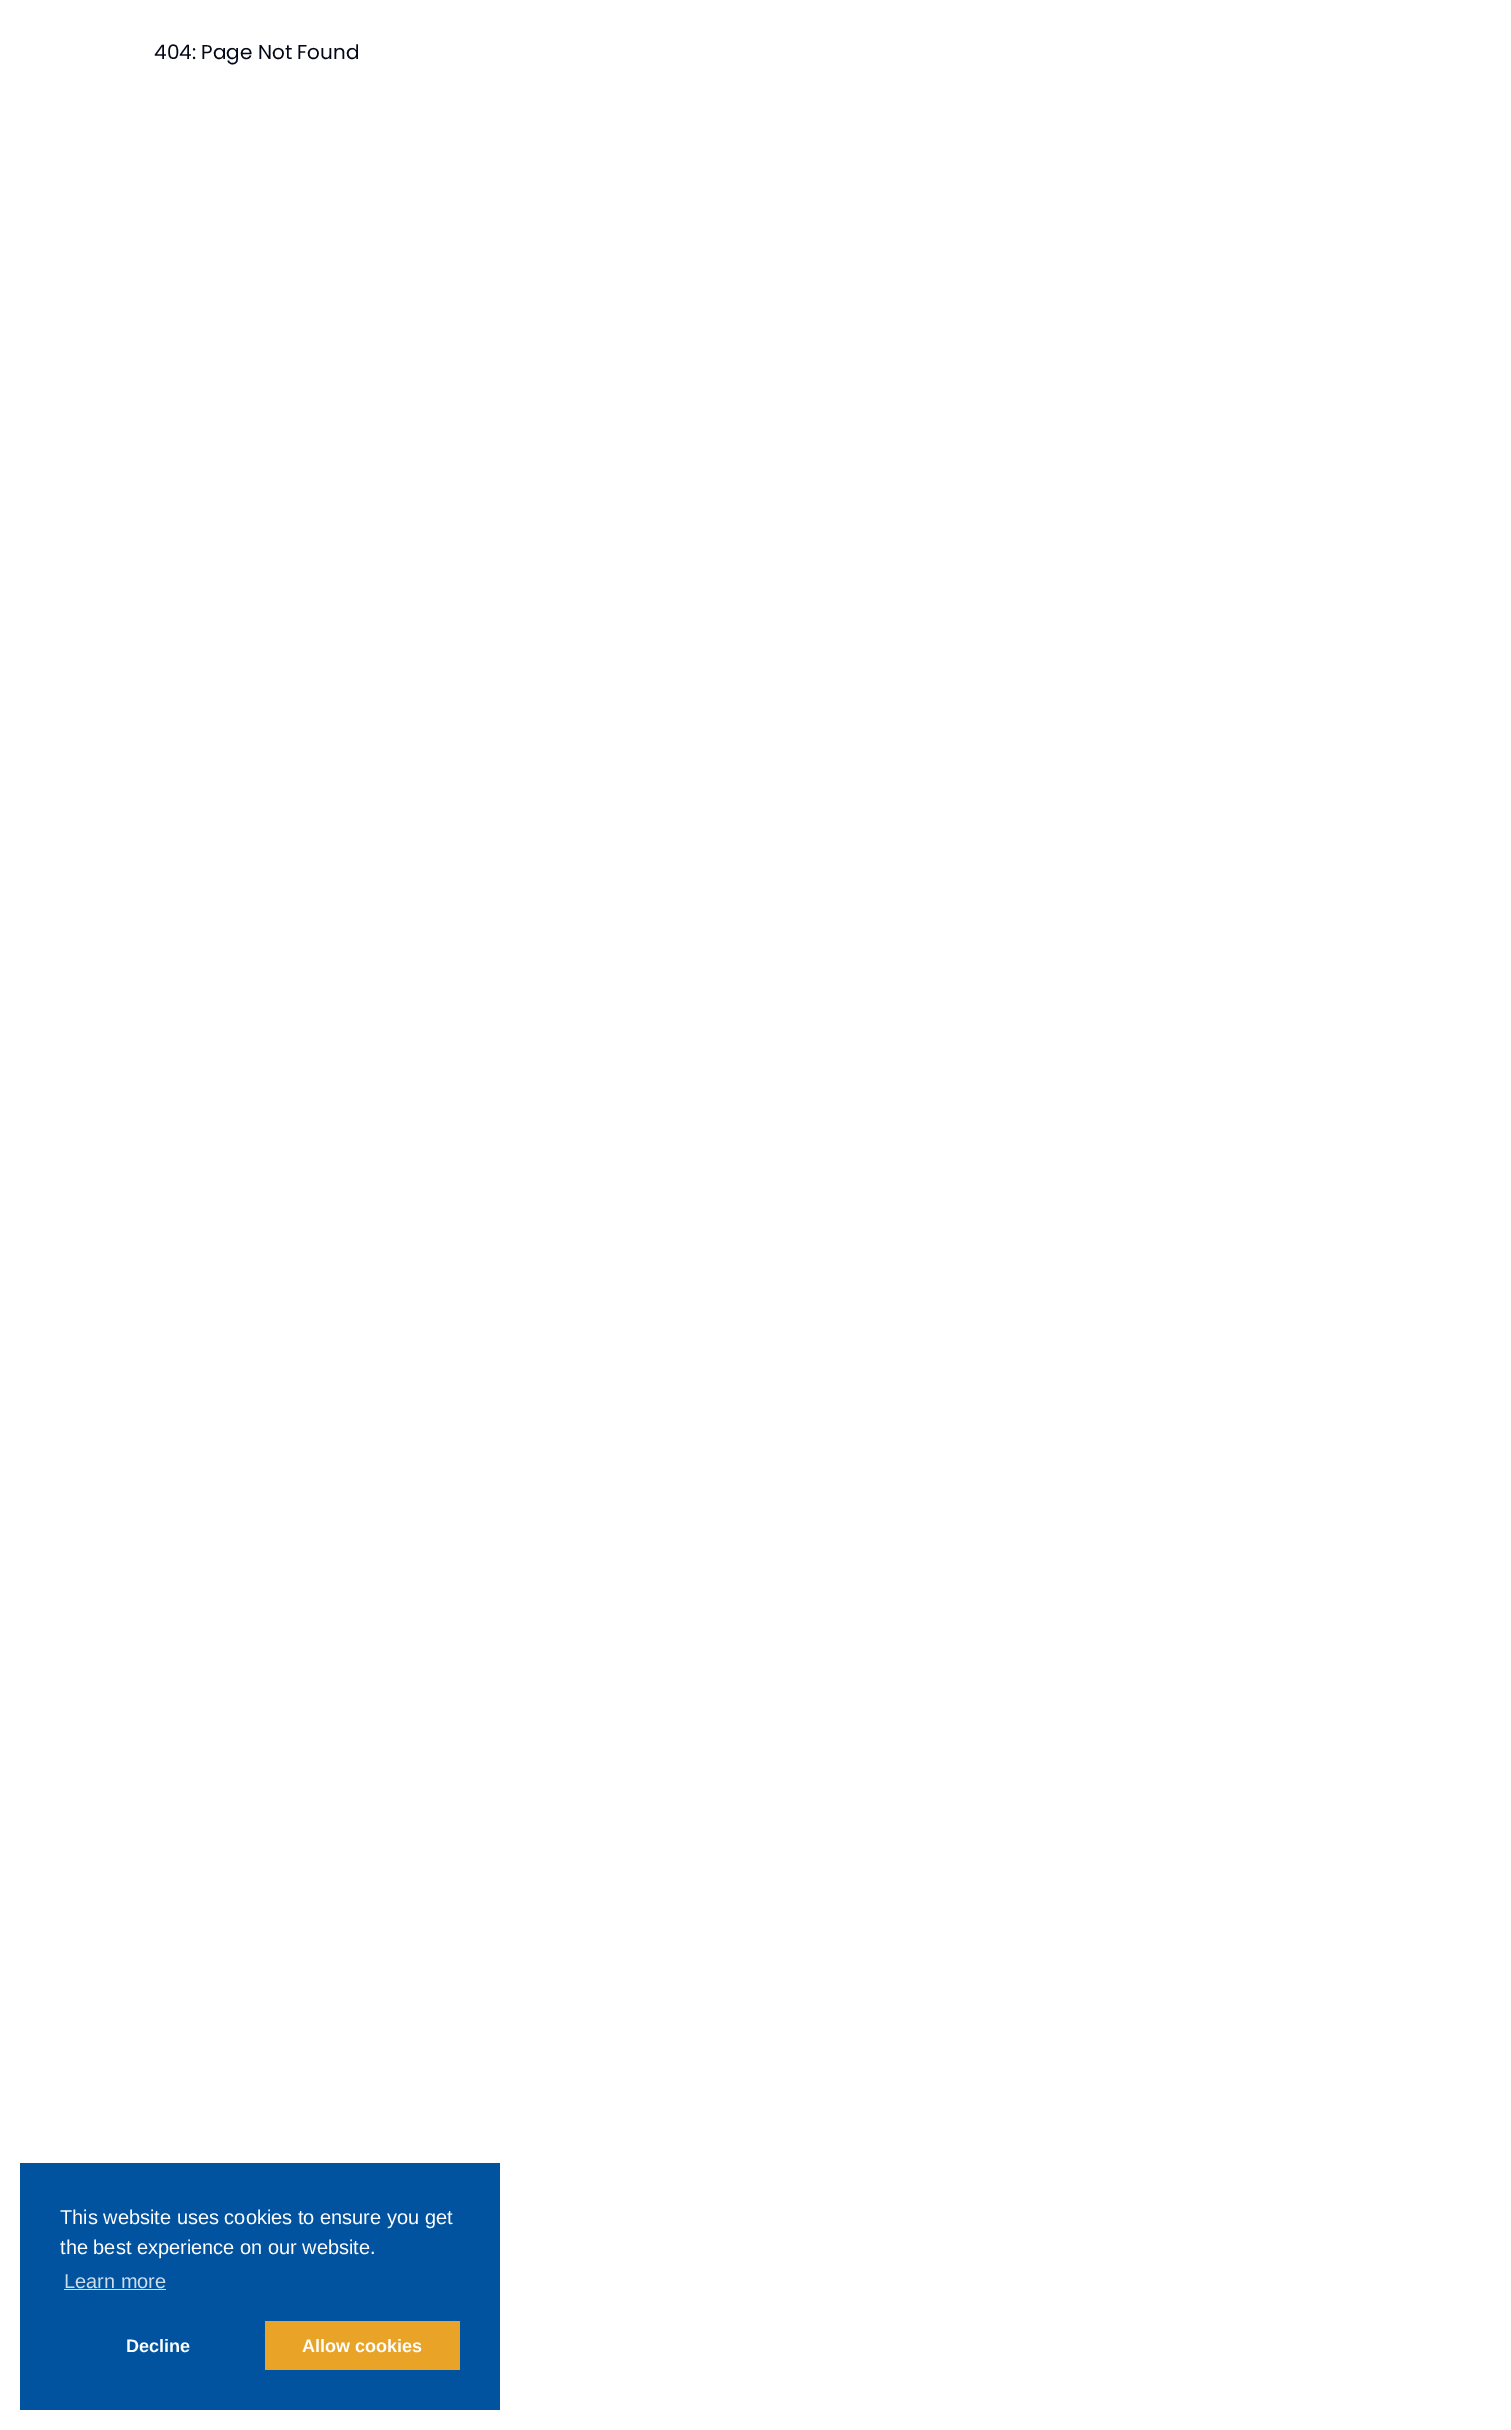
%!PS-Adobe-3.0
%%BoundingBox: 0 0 1511 2430
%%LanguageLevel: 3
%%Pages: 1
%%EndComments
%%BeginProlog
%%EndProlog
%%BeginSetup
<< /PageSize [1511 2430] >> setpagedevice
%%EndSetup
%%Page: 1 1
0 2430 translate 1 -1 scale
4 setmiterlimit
1 setgray
0 0 1511 2430 rectfill
0.008 0.325 0.624 setrgbcolor
20 2163 480 247 rectfill
0.8 0.867 0.925 setrgbcolor
64 2289 102 1 rectfill
0.914 0.643 0.153 setrgbcolor
265 2321 195 49 rectfill
/Poppins-Regular [20 0 0 -20 0 0] selectfont
0.008 0.031 0.09 setrgbcolor
154 59 moveto (404: Page Not Found) show
/LiberationSans-Regular [20 0 0 -20 0 0] selectfont
1 setgray
60 2224 moveto (This website uses cookies to ensure you get) show
60 2254 moveto (the best experience on our website.) show
0.8 0.867 0.925 setrgbcolor
64 2288 moveto (Learn more) show
/LiberationSans-Bold [18 0 0 -18 0 0] selectfont
1 setgray
126 2352 moveto (Decline) show
302 2352 moveto (Allow cookies) show
showpage
%%EOF
